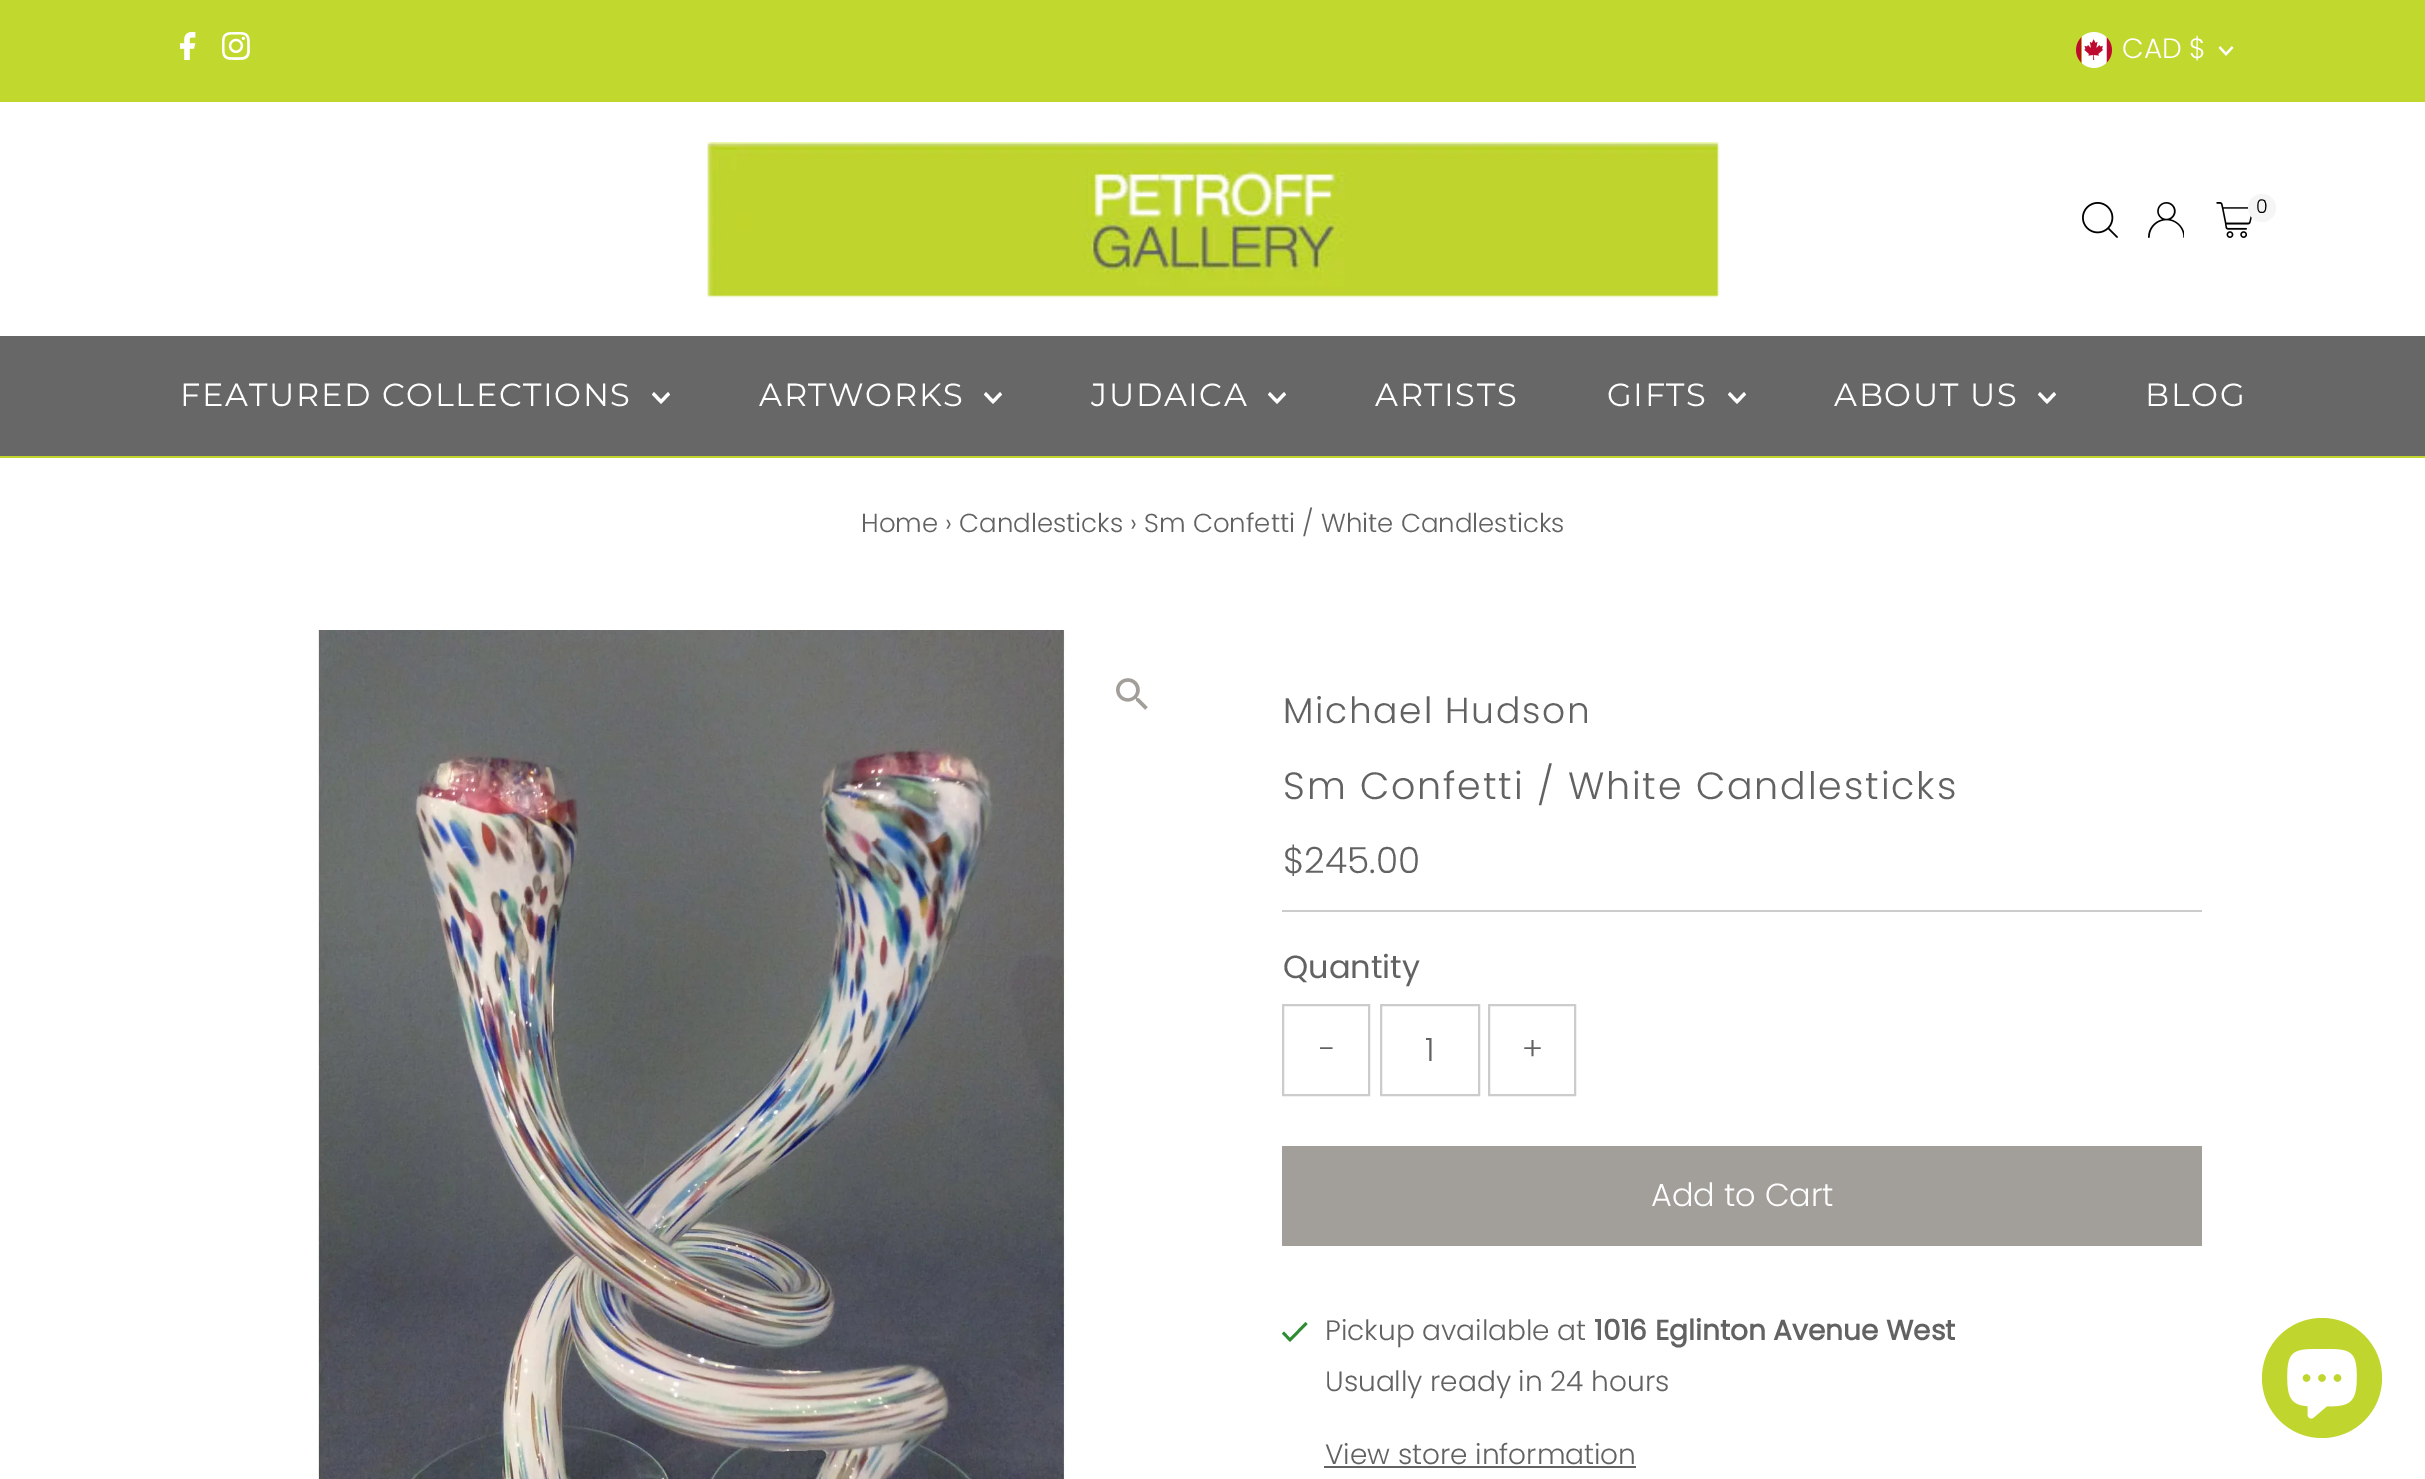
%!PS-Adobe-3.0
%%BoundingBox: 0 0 2425 1479
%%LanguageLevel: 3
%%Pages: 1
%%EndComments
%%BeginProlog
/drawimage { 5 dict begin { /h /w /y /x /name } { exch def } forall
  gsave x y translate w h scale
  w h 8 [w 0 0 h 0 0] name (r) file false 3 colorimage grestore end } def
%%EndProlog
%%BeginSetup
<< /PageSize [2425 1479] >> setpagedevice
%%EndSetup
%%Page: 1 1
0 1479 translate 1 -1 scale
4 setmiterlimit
1 setgray
0 0 2425 1479 rectfill
0.757 0.847 0.184 setrgbcolor
0 0 2425 100 rectfill
(images/1.raw) 180 32 16 28 drawimage
(images/2.raw) 222 32 28 28 drawimage
(images/3.raw) 2076 32 36 36 drawimage
(images/4.raw) 2218 46 16 10 drawimage
0.757 0.843 0.176 setrgbcolor
0 100 2425 2 rectfill
0 456 2425 2 rectfill
(images/5.raw) 707 142 1013 156 drawimage
(images/6.raw) 2082 202 36 36 drawimage
(images/7.raw) 2148 202 36 36 drawimage
(images/8.raw) 2216 202 36 36 drawimage
0.961 setgray
newpath 2262 208 14 0 360 arc closepath fill
0.408 0.404 0.404 setrgbcolor
0 336 2425 120 rectfill
1 setgray
newpath 668 392 moveto 661 399.5 lineto 654 392 lineto 652 394.5 lineto 661 404 lineto 670 394.5 lineto closepath fill
newpath 1000 392 moveto 993 399.5 lineto 986 392 lineto 984 394.5 lineto 993 404 lineto 1002 394.5 lineto closepath fill
newpath 1284 392 moveto 1277 399.5 lineto 1270 392 lineto 1268 394.5 lineto 1277 404 lineto 1286 394.5 lineto closepath fill
newpath 1744 392 moveto 1737 399.5 lineto 1730 392 lineto 1728 394.5 lineto 1737 404 lineto 1746 394.5 lineto closepath fill
newpath 2054 392 moveto 2047 399.5 lineto 2040 392 lineto 2038 394.5 lineto 2047 404 lineto 2056 394.5 lineto closepath fill
(images/9.raw) 318 630 749 849 drawimage
(images/10.raw) 1116 678 32 32 drawimage
0.8 setgray
1282 910 920 2 rectfill
2 setlinewidth
1283 1005 86 90 rectstroke
1381 1005 98 90 rectstroke
1489 1005 86 90 rectstroke
0.635 0.624 0.608 setrgbcolor
1282 1146 920 100 rectfill
0.18 0.553 0.196 setrgbcolor
newpath 1290 1338 moveto 1284 1331.5 lineto 1282 1333.5 lineto 1290 1342 lineto 1307.5 1324 lineto 1305.5 1322 lineto closepath fill
0.384 setgray
1324 1466 312 2 rectfill
0.753 0.835 0.18 setrgbcolor
newpath 2322 1378 60 0 360 arc closepath fill
(images/11.raw) 2287 1349 70 70 drawimage
/Poppins-Light [28 0 0 -28 0 0] selectfont
1 setgray
2122 58 moveto (CAD $) show
/Poppins-Light [19 0 0 -19 0 0] selectfont
0 setgray
2256 213 moveto (0) show
/Montserrat-Regular [32 0 0 -32 0 0] selectfont
1 setgray
180 406 moveto 1.6 0 (FEATURED COLLECTIONS) ashow
759 406 moveto 1.6 0 (ARTWORKS) ashow
1091 406 moveto 1.6 0 (JUDAICA) ashow
1375 406 moveto 1.6 0 (ARTISTS) ashow
1607 406 moveto 1.6 0 (GIFTS) ashow
1834 406 moveto 1.6 0 (ABOUT US) ashow
2145 406 moveto 1.6 0 (BLOG) ashow
/Poppins-Light [26 0 0 -26 0 0] selectfont
0.384 setgray
861 532 moveto (Home › Candlesticks › Sm Confetti / White Candlesticks) show
/Poppins-Light [36 0 0 -36 0 0] selectfont
1283 723 moveto 1.75 0 (Michael Hudson) ashow
/Poppins-Light [38 0 0 -38 0 0] selectfont
1283 799 moveto 1.9 0 (Sm Confetti / White Candlesticks) ashow
/Poppins-Light [36 0 0 -36 0 0] selectfont
1283 873 moveto ($245.00) show
/Poppins-Regular [32 0 0 -32 0 0] selectfont
1283 978 moveto (Quantity) show
/Poppins-Light [32 0 0 -32 0 0] selectfont
1319 1060 moveto (-) show
1425 1061 moveto (1) show
1522 1060 moveto (+) show
1 setgray
1651 1206 moveto (Add to Cart) show
/Poppins-Light [28 0 0 -28 0 0] selectfont
0.384 setgray
1325 1340 moveto (Pickup available at) show
/Poppins-Bold [28 0 0 -28 0 0] selectfont
1594 1340 moveto (1016 Eglinton Avenue West) show
/Poppins-Light [28 0 0 -28 0 0] selectfont
1325 1391 moveto (Usually ready in 24 hours) show
1325 1464 moveto (View store information) show
showpage
%%EOF
